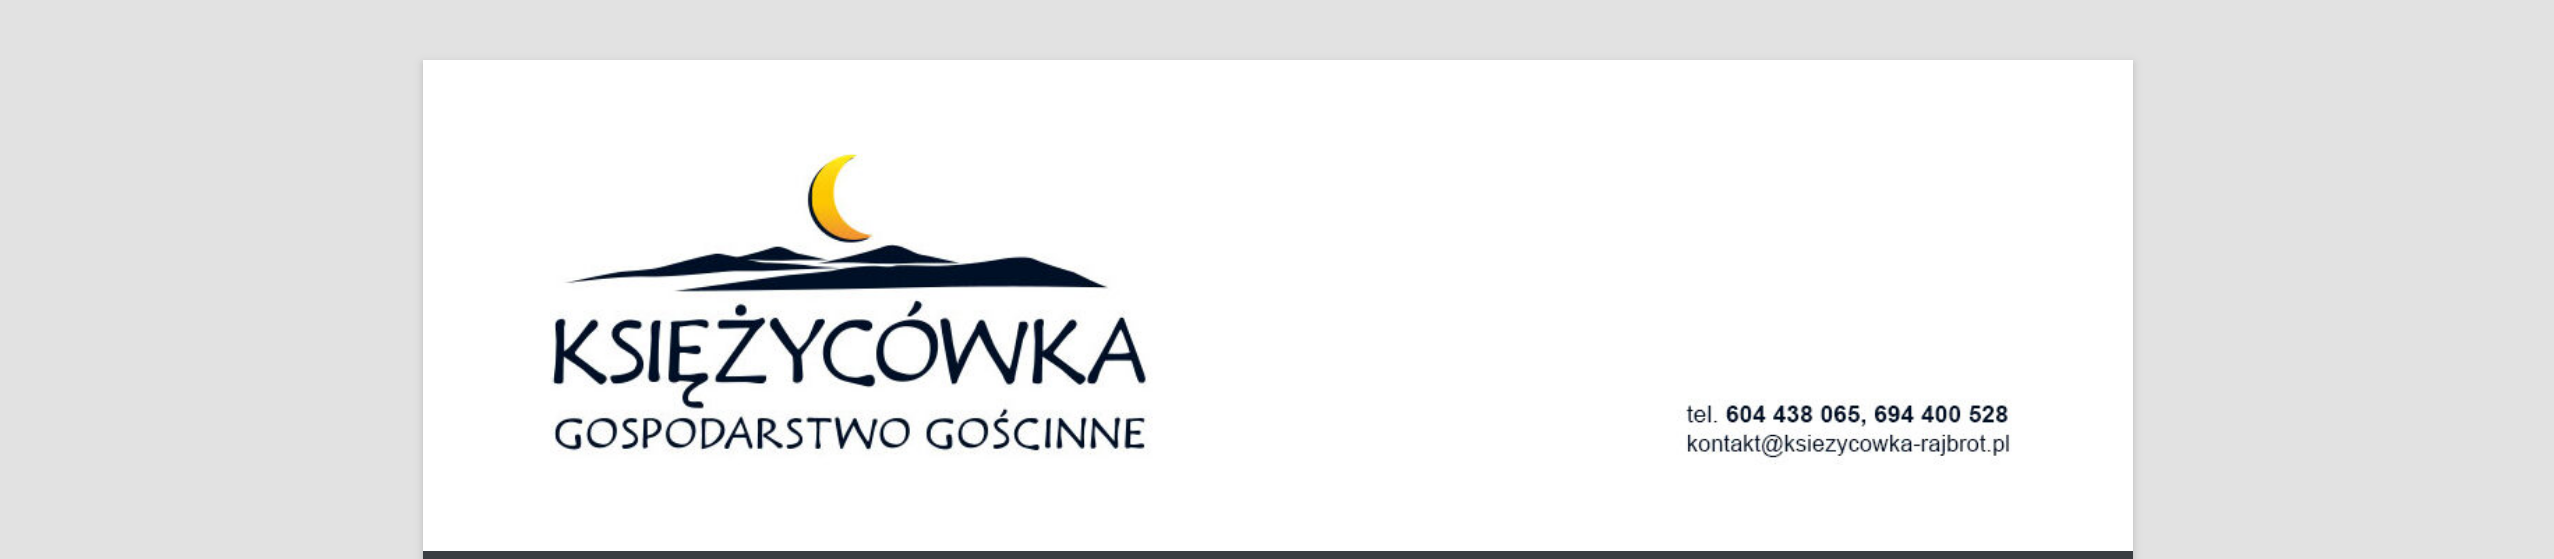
%!PS-Adobe-3.0
%%BoundingBox: 0 0 2554 559
%%LanguageLevel: 3
%%Pages: 1
%%EndComments
%%BeginProlog
/setalpha { dup .setfillconstantalpha .setstrokeconstantalpha } def
/rrect { 5 dict begin { /r /h /w /y /x } { exch def } forall
  x r add y moveto x w add y 2 copy h add r arct x w add y h add x 1 index r arct
  x y h add x y r arct x y 2 copy exch w add exch r arct closepath end } def
/softshadow { 12 dict begin { /a /b /q /h /w /y /x } { exch def } forall gsave /was 0 def
  9 -2 -9 { dup b mul 4 div /e exch def 1 sub .425 mul 2.718 exch exp 1 add a .99 .min exch div /now exch def
    1 1 now sub 1 was sub div sub setalpha /was now def
    w h .min e 2 mul add 0 gt { x e sub y e sub w e 2 mul add h e 2 mul add
      q e add b .6 mul add w h .min 2 div e add .min 0 .max rrect fill } if } for grestore end } def
/drawimage { 5 dict begin { /h /w /y /x /name } { exch def } forall
  gsave x y translate w h scale
  w h 8 [w 0 0 h 0 0] name (r) file false 3 colorimage grestore end } def
%%EndProlog
%%BeginSetup
<< /PageSize [2554 559] /PageUsesTransparency true >> setpagedevice
%%EndSetup
%%Page: 1 1
0 .pushpdf14devicefilter
0 559 translate 1 -1 scale
4 setmiterlimit
0.886 setgray
0 0 2554 559 rectfill
0.392 setgray
423 63 1710 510 0 4.5 0.3 softshadow
1 setgray
423 60 1710 491 rectfill
(images/1.raw) 550 153 1462 312 drawimage
0.227 0.239 0.255 setrgbcolor
423 551 1710 8 rectfill
.poppdf14devicefilter showpage
%%EOF
